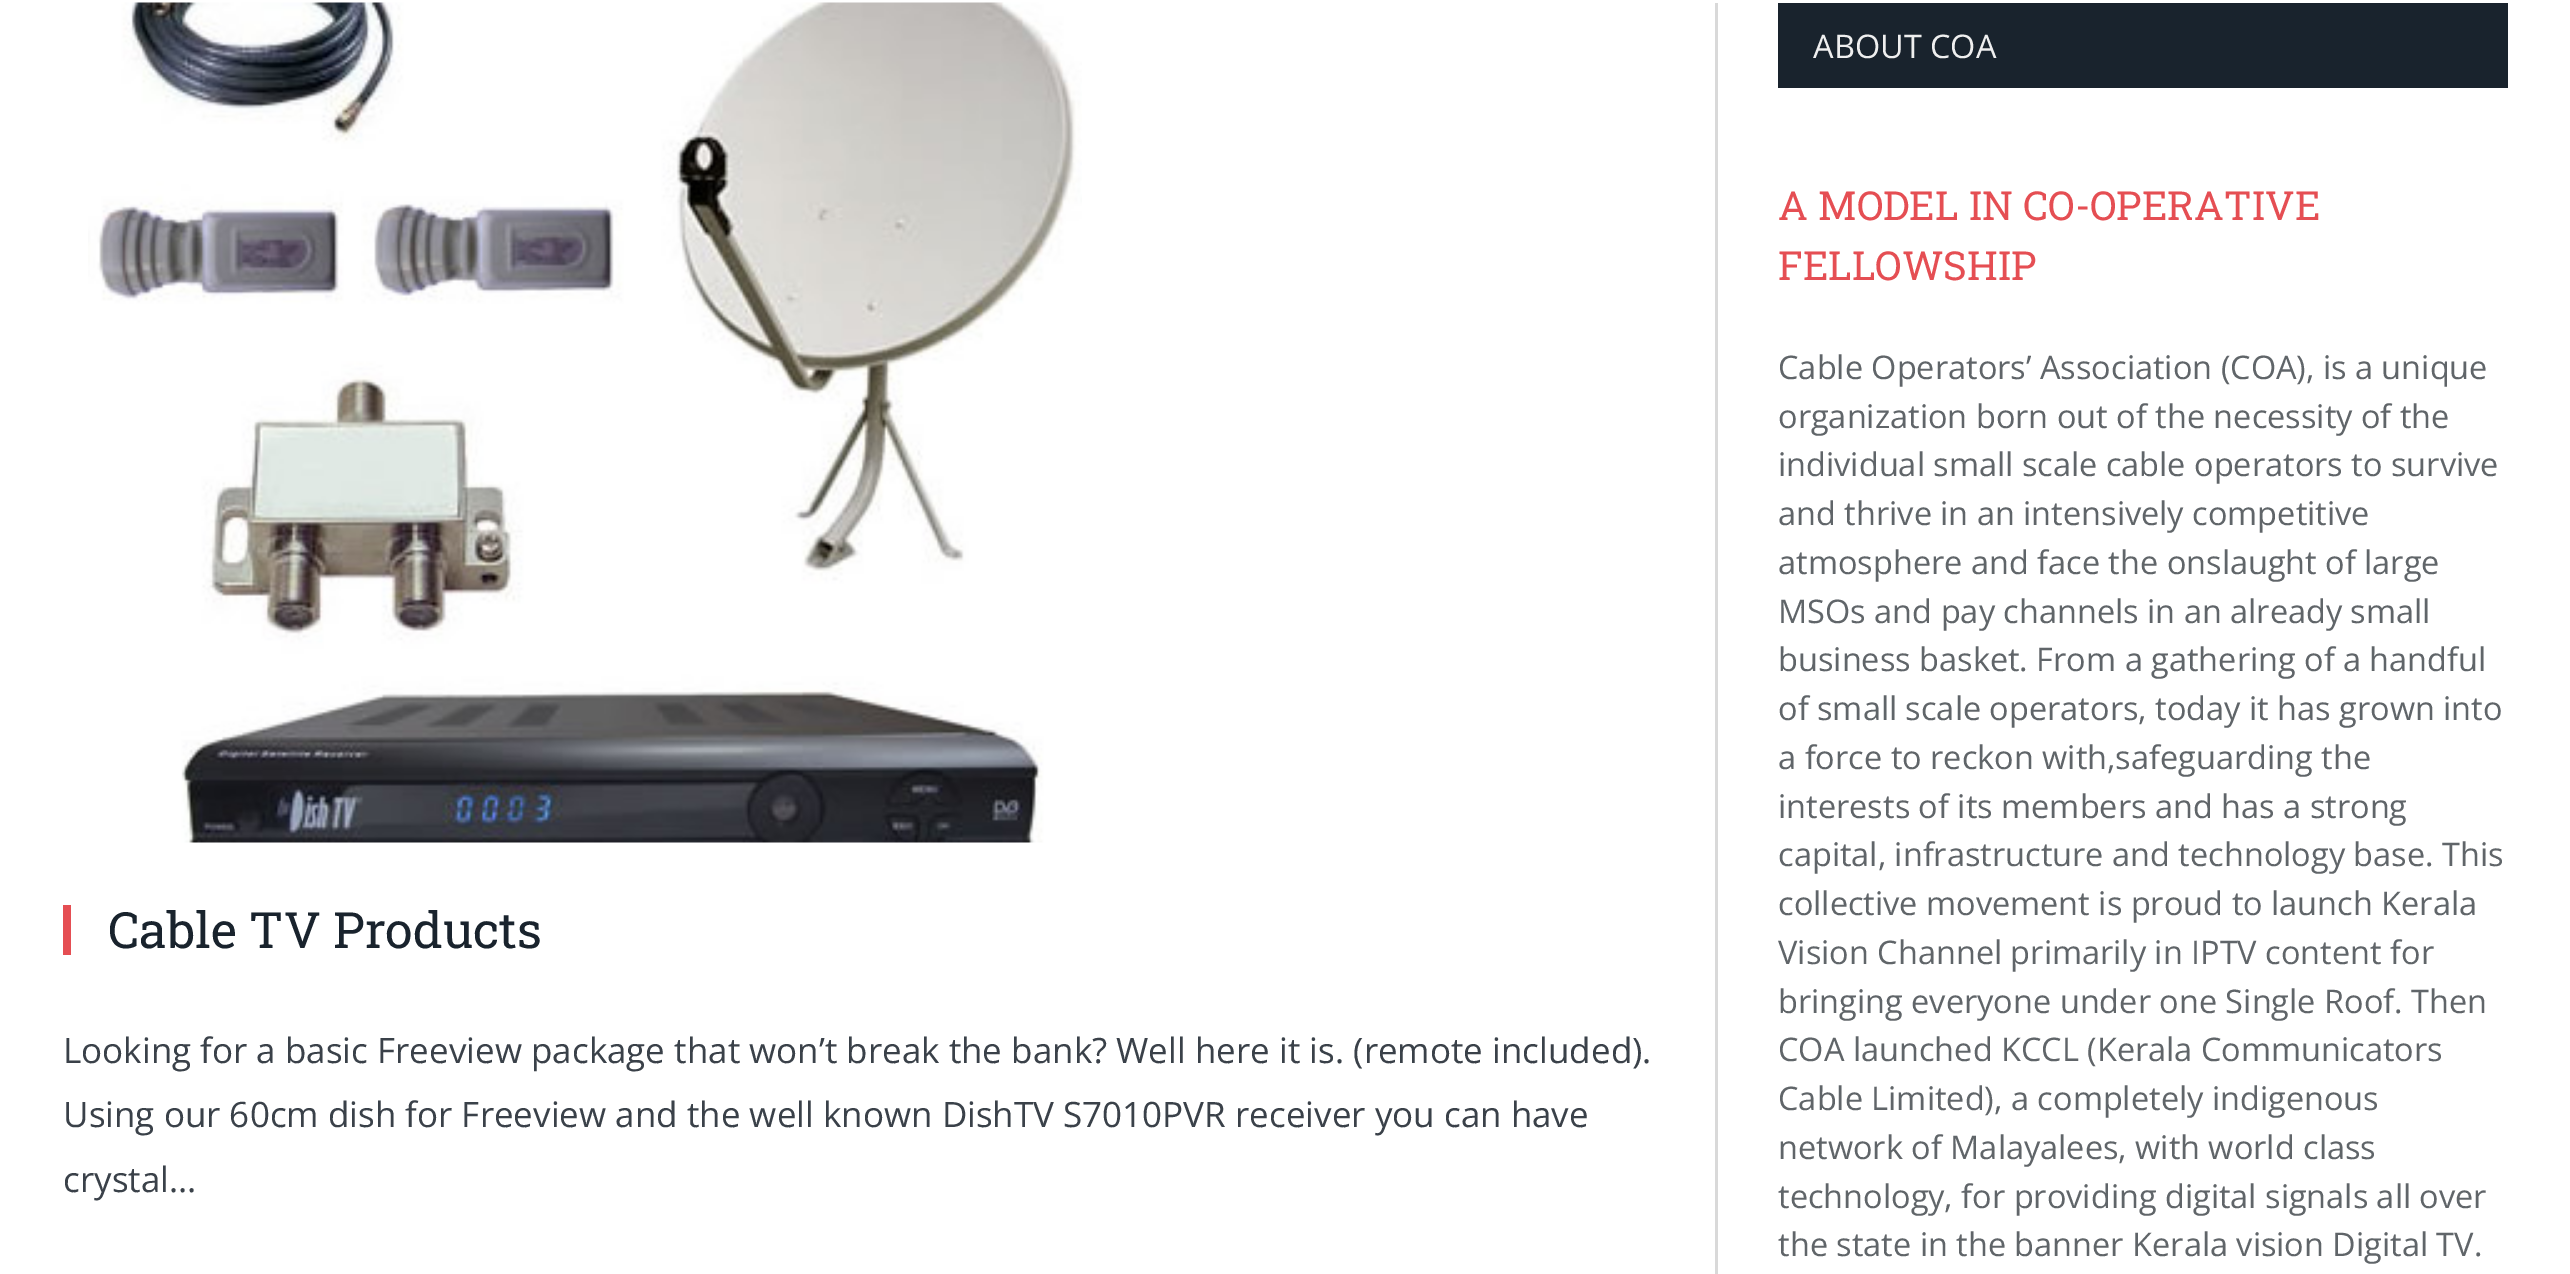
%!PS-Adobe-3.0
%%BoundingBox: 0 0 2570 1274
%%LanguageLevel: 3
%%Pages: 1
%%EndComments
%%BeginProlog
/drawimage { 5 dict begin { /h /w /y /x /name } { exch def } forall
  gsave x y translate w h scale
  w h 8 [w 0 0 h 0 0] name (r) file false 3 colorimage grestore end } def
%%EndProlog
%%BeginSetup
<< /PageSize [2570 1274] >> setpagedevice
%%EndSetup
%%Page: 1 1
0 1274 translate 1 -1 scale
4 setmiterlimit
1 setgray
0 0 2570 1274 rectfill
(images/1.raw) 88 2 994 841 drawimage
0.898 0.306 0.325 setrgbcolor
63 905 8 50 rectfill
0.851 setgray
1715 3 3 1271 rectfill
0.098 0.137 0.176 setrgbcolor
1778 3 730 85 rectfill
/RobotoSlab-Regular [50 0 0 -50 0 0] selectfont
108 948 moveto (Cable TV Products) show
/OpenSans-Regular [35 0 0 -35 0 0] selectfont
0.227 0.255 0.286 setrgbcolor
63 1063 moveto (Looking for a basic Freeview package that won’t break the bank? Well here it is. \(remote included\).) show
63 1127 moveto (Using our 60cm dish for Freeview and the well known DishTV S7010PVR receiver you can have) show
63 1192 moveto (crystal…) show
/OpenSans-Regular [32.5 0 0 -32.5 0 0] selectfont
0.937 setgray
1813 58 moveto (ABOUT COA) show
/RobotoSlab-Regular [40 0 0 -40 0 0] selectfont
0.898 0.306 0.325 setrgbcolor
1778 220 moveto (A MODEL IN CO-OPERATIVE) show
1778 280 moveto (FELLOWSHIP) show
/OpenSans-Regular [32.5 0 0 -32.5 0 0] selectfont
0.376 0.396 0.412 setrgbcolor
1778 379 moveto (Cable Operators’ Association \(COA\), is a unique) show
1778 428 moveto (organization born out of the necessity of the) show
1778 476 moveto (individual small scale cable operators to survive) show
1778 525 moveto (and thrive in an intensively competitive) show
1778 574 moveto (atmosphere and face the onslaught of large) show
1778 623 moveto (MSOs and pay channels in an already small) show
1778 671 moveto (business basket. From a gathering of a handful) show
1778 720 moveto (of small scale operators, today it has grown into) show
1778 769 moveto (a force to reckon with,safeguarding the) show
1778 818 moveto (interests of its members and has a strong) show
1778 866 moveto (capital, infrastructure and technology base. This) show
1778 915 moveto (collective movement is proud to launch Kerala) show
1778 964 moveto (Vision Channel primarily in IPTV content for) show
1778 1013 moveto (bringing everyone under one Single Roof. Then) show
1778 1061 moveto (COA launched KCCL \(Kerala Communicators) show
1778 1110 moveto (Cable Limited\), a completely indigenous) show
1778 1159 moveto (network of Malayalees, with world class) show
1778 1208 moveto (technology, for providing digital signals all over) show
1778 1256 moveto (the state in the banner Kerala vision Digital TV.) show
showpage
%%EOF
